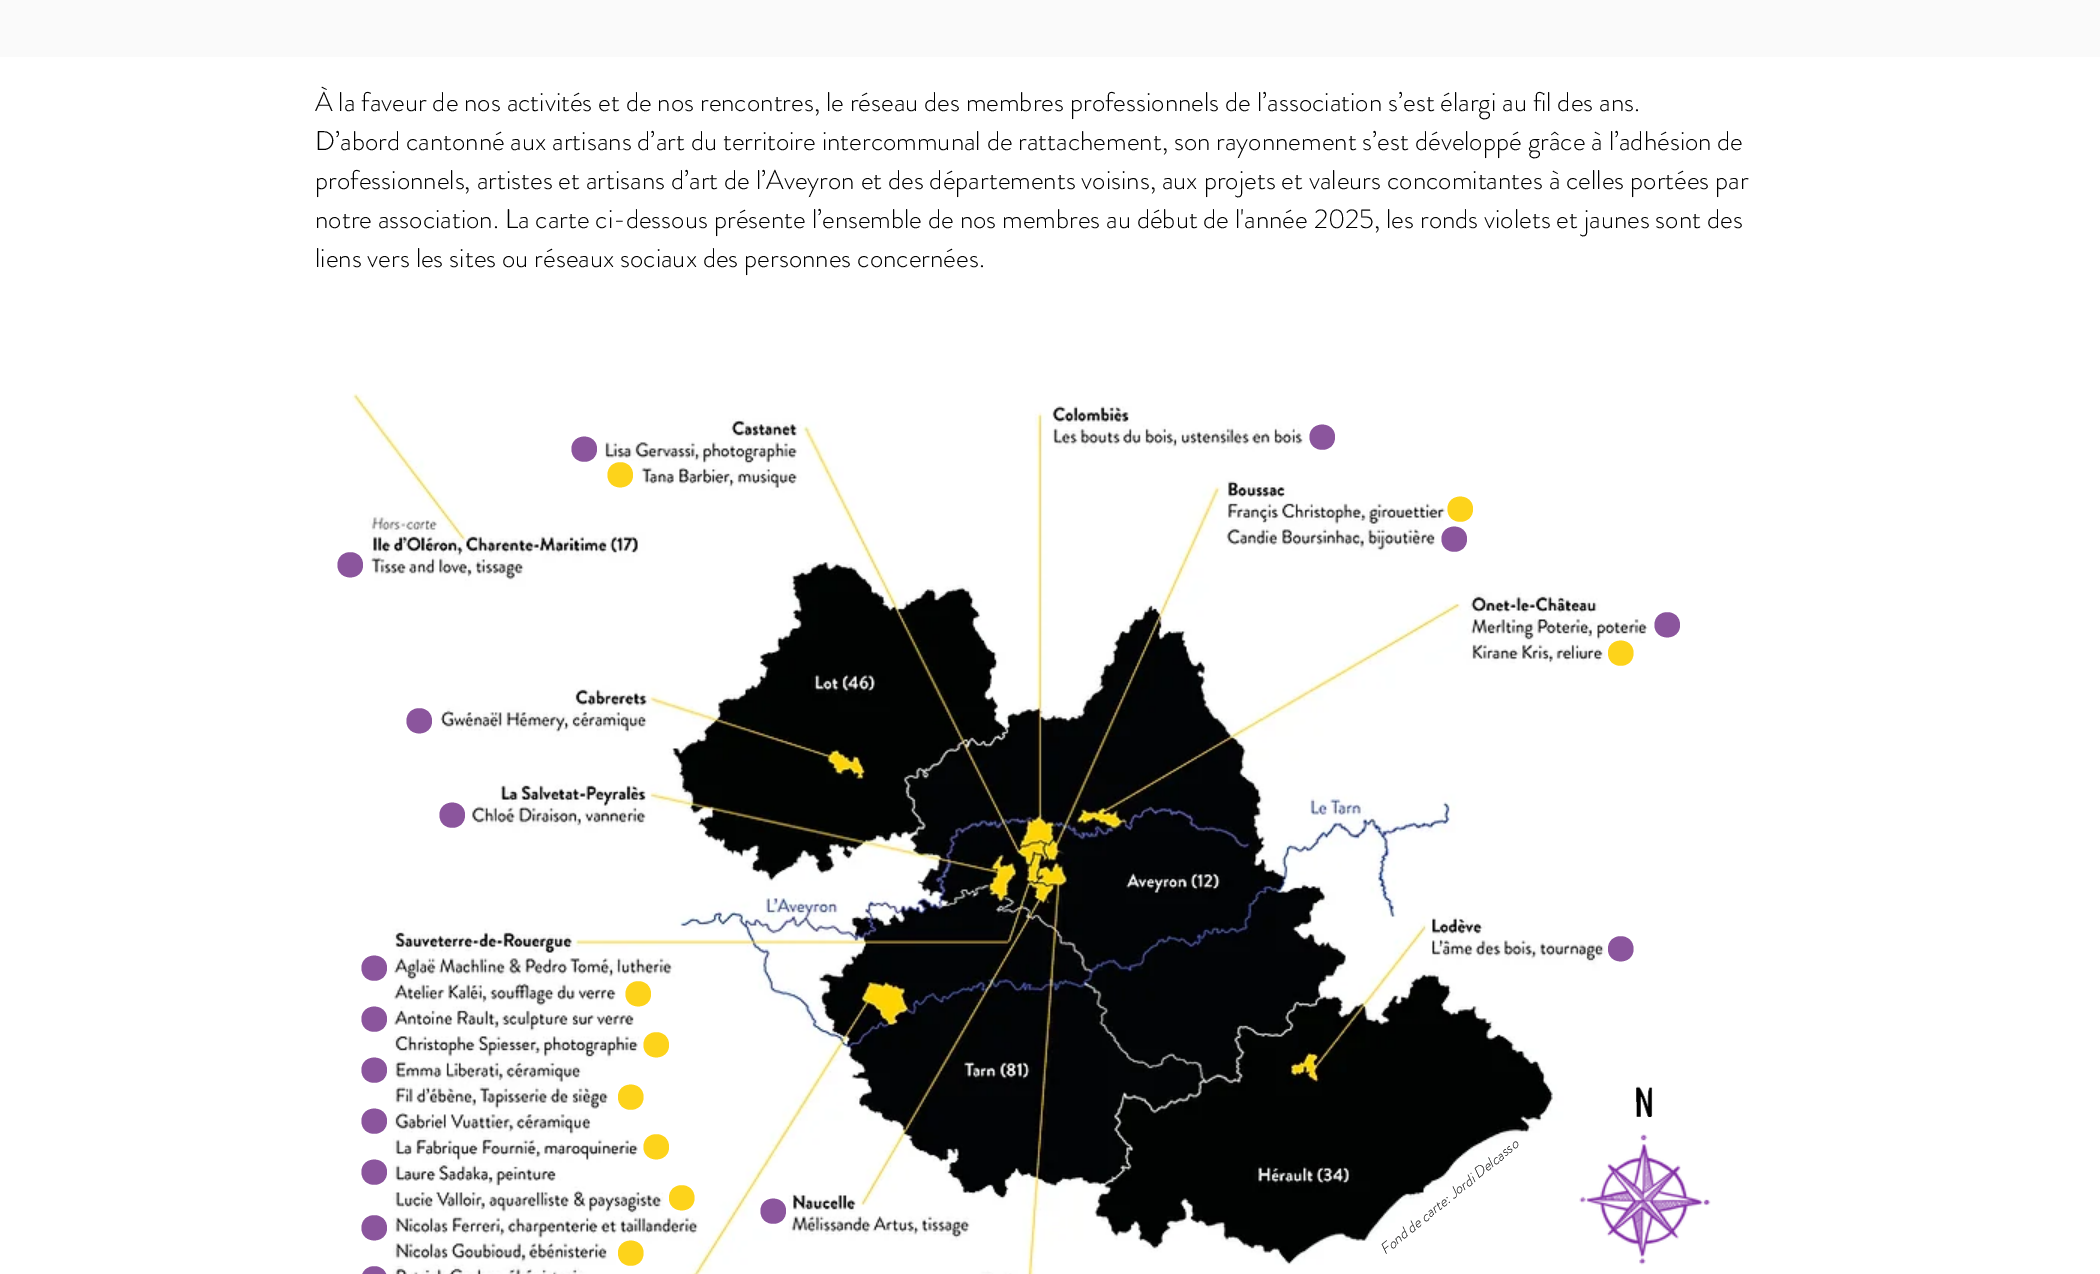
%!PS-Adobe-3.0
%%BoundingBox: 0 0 2100 1274
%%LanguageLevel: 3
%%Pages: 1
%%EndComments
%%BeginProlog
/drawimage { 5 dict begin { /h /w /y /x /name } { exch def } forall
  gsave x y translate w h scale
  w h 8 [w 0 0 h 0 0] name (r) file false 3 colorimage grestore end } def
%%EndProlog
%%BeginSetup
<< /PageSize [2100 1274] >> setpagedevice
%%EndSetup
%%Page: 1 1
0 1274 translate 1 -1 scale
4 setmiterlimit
1 setgray
0 0 2100 1274 rectfill
0.98 setgray
0 0 2100 57 rectfill
(images/1.raw) 352 393 1296 881 drawimage
0.545 0.333 0.616 setrgbcolor
newpath 597 449 moveto 597 466 571.5 466 571.5 449 curveto 571.5 432.5 597 432.5 597 449 curveto closepath fill
newpath 1335 437 moveto 1335 454 1309.5 454 1309.5 437 curveto 1309.5 420.5 1335 420.5 1335 437 curveto closepath fill
0.992 0.827 0.106 setrgbcolor
newpath 633 475 moveto 633 491.5 607.5 491.5 607.5 475 curveto 607.5 458 633 458 633 475 curveto closepath fill
newpath 1473 509 moveto 1473 526 1447.5 526 1447.5 509 curveto 1447.5 492.5 1473 492.5 1473 509 curveto closepath fill
0.545 0.333 0.616 setrgbcolor
newpath 1467 539 moveto 1467 556 1441.5 556 1441.5 539 curveto 1441.5 522.5 1467 522.5 1467 539 curveto closepath fill
newpath 363 565 moveto 363 581.5 337.5 581.5 337.5 565 curveto 337.5 548 363 548 363 565 curveto closepath fill
newpath 1680 625 moveto 1680 641.5 1654.5 641.5 1654.5 625 curveto 1654.5 608 1680 608 1680 625 curveto closepath fill
0.992 0.827 0.106 setrgbcolor
newpath 1633.5 653 moveto 1633.5 670 1608 670 1608 653 curveto 1608 636.5 1633.5 636.5 1633.5 653 curveto closepath fill
0.545 0.333 0.616 setrgbcolor
newpath 432 721 moveto 432 737.5 406.5 737.5 406.5 721 curveto 406.5 704 432 704 432 721 curveto closepath fill
newpath 465 815 moveto 465 832 439.5 832 439.5 815 curveto 439.5 798.5 465 798.5 465 815 curveto closepath fill
newpath 1633.5 949 moveto 1633.5 965.5 1608 965.5 1608 949 curveto 1608 932 1633.5 932 1633.5 949 curveto closepath fill
newpath 387 968 moveto 387 985 361.5 985 361.5 968 curveto 361.5 951.5 387 951.5 387 968 curveto closepath fill
0.992 0.827 0.106 setrgbcolor
newpath 651 994 moveto 651 1010.5 625.5 1010.5 625.5 994 curveto 625.5 977 651 977 651 994 curveto closepath fill
0.545 0.333 0.616 setrgbcolor
newpath 387 1019 moveto 387 1036 361.5 1036 361.5 1019 curveto 361.5 1002.5 387 1002.5 387 1019 curveto closepath fill
0.992 0.827 0.106 setrgbcolor
newpath 669 1045 moveto 669 1061.5 643.5 1061.5 643.5 1045 curveto 643.5 1028 669 1028 669 1045 curveto closepath fill
0.545 0.333 0.616 setrgbcolor
newpath 387 1070 moveto 387 1087 361.5 1087 361.5 1070 curveto 361.5 1053.5 387 1053.5 387 1070 curveto closepath fill
0.992 0.827 0.106 setrgbcolor
newpath 643.5 1097 moveto 643.5 1114 618 1114 618 1097 curveto 618 1080.5 643.5 1080.5 643.5 1097 curveto closepath fill
(images/2.raw) 1636 1086 17 32 drawimage
0.545 0.333 0.616 setrgbcolor
newpath 387 1121 moveto 387 1138 361.5 1138 361.5 1121 curveto 361.5 1104.5 387 1104.5 387 1121 curveto closepath fill
newpath 387 1172 moveto 387 1189 361.5 1189 361.5 1172 curveto 361.5 1155.5 387 1155.5 387 1172 curveto closepath fill
0.992 0.827 0.106 setrgbcolor
newpath 669 1147 moveto 669 1163.5 643.5 1163.5 643.5 1147 curveto 643.5 1130 669 1130 669 1147 curveto closepath fill
(images/3.raw) 1579 1134 132 131 drawimage
newpath 694.5 1198 moveto 694.5 1214.5 669 1214.5 669 1198 curveto 669 1181 694.5 1181 694.5 1198 curveto closepath fill
0.545 0.333 0.616 setrgbcolor
newpath 786 1211 moveto 786 1228 760.5 1228 760.5 1211 curveto 760.5 1194.5 786 1194.5 786 1211 curveto closepath fill
newpath 387 1228 moveto 387 1244.5 361.5 1244.5 361.5 1228 curveto 361.5 1211 387 1211 387 1228 curveto closepath fill
0.992 0.827 0.106 setrgbcolor
newpath 643.5 1253 moveto 643.5 1270 618 1270 618 1253 curveto 618 1236.5 643.5 1236.5 643.5 1253 curveto closepath fill
0.545 0.333 0.616 setrgbcolor
newpath 387 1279 moveto 387 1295.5 361.5 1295.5 361.5 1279 curveto 361.5 1262 387 1262 387 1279 curveto closepath fill
/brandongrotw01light-Light [27 0 0 -27 0 0] selectfont
0 setgray
315 111 moveto (À la faveur de nos activités et de nos rencontres, le réseau des membres professionnels de l’association s’est élargi au fil des ans.) show
315 150 moveto (D’abord cantonné aux artisans d’art du territoire intercommunal de rattachement, son rayonnement s’est développé grâce à l’adhésion de) show
315 189 moveto (professionnels, artistes et artisans d’art de l’Aveyron et des départements voisins, aux projets et valeurs concomitantes à celles portées par) show
315 228 moveto (notre association. La carte ci-dessous présente l’ensemble de nos membres au début de l'année 2025, les ronds violets et jaunes sont des) show
315 267 moveto (liens vers les sites ou réseaux sociaux des personnes concernées.) show
/brandongrotw01light-LightItalic [15 0 0 -15 0 0] selectfont
gsave 1385 1255 translate -39.1 rotate 0 0 moveto (Fond de carte: Jordi Delcasso) show grestore
showpage
%%EOF
